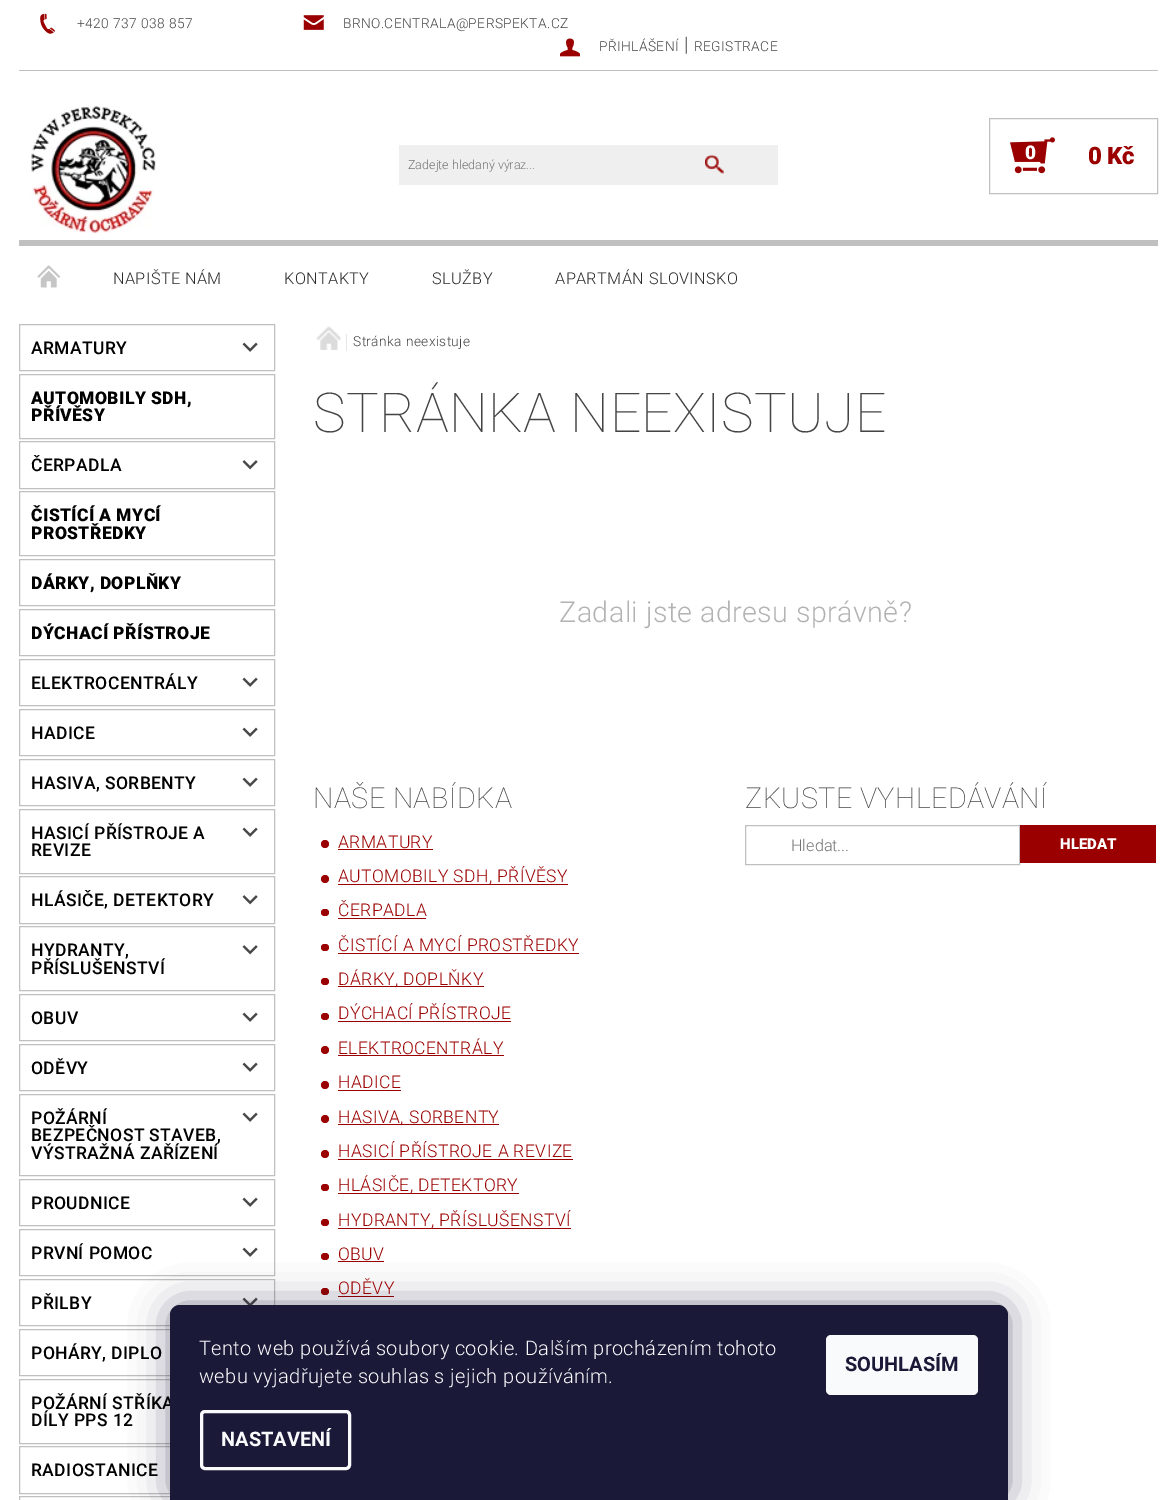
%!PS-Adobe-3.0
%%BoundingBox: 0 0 1176 1500
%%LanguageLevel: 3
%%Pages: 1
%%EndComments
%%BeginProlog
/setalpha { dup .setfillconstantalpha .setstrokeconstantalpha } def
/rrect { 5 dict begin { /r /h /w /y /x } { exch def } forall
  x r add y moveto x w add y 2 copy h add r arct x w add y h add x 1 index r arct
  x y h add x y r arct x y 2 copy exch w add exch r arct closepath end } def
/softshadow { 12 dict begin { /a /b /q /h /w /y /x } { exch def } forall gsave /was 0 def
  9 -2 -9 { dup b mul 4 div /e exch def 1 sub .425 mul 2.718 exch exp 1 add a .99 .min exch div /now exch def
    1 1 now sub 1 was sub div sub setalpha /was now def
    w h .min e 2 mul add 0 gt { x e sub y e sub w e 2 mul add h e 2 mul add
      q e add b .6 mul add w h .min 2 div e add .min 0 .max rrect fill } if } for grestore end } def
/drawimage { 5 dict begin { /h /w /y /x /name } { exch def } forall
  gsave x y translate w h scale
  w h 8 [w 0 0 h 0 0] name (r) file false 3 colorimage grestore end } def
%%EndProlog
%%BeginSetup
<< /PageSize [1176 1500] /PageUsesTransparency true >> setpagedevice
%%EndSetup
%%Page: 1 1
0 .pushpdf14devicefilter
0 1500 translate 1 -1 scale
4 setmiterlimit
1 setgray
0 0 1176 1500 rectfill
0.753 setgray
19 70 1139 1 rectfill
(images/1.raw) 40 13 15 21 drawimage
(images/2.raw) 303 15 21 15 drawimage
(images/3.raw) 560 38 20 19 drawimage
(images/4.raw) 31 106 125 127 drawimage
0.937 setgray
399 145 379 40 rectfill
0.604 0 0 setrgbcolor
705 154 19 20 rectfill
(images/5.raw) 705 154 20 21 drawimage
0.753 setgray
989.5 118.5 168 75 rectstroke
(images/6.raw) 1010 137 45 37 drawimage
19 240 1139 6 rectfill
(images/7.raw) 37 265 23 23 drawimage
19.5 324.5 255 46 rectstroke
(images/8.raw) 242 342 16 10 drawimage
19.5 374.5 255 64 rectstroke
19.5 441.5 255 47 rectstroke
(images/9.raw) 242 460 16 10 drawimage
19.5 491.5 255 64 rectstroke
19.5 559.5 255 46 rectstroke
19.5 609.5 255 46 rectstroke
19.5 659.5 255 46 rectstroke
(images/8.raw) 242 677 16 10 drawimage
19.5 709.5 255 46 rectstroke
(images/8.raw) 242 727 16 10 drawimage
19.5 759.5 255 46 rectstroke
(images/8.raw) 242 777 16 10 drawimage
19.5 809.5 255 64 rectstroke
(images/8.raw) 242 827 16 10 drawimage
19.5 876.5 255 47 rectstroke
(images/9.raw) 242 895 16 10 drawimage
19.5 926.5 255 64 rectstroke
(images/9.raw) 242 945 16 10 drawimage
19.5 994.5 255 46 rectstroke
(images/8.raw) 242 1012 16 10 drawimage
19.5 1044.5 255 46 rectstroke
(images/8.raw) 242 1062 16 10 drawimage
19.5 1094.5 255 81 rectstroke
(images/8.raw) 242 1112 16 10 drawimage
19.5 1179.5 255 46 rectstroke
(images/8.raw) 242 1197 16 10 drawimage
19.5 1229.5 255 46 rectstroke
(images/8.raw) 242 1247 16 10 drawimage
19.5 1279.5 255 46 rectstroke
(images/10.raw) 242 1297 16 8 drawimage
19.5 1329.5 255 46 rectstroke
19.5 1379.5 255 64 rectstroke
19.5 1446.5 255 47 rectstroke
19.5 1496.5 255 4 rectstroke
(images/11.raw) 316 326 25 24 drawimage
0.906 setgray
346 334 1 17 rectfill
0.604 0 0 setrgbcolor
newpath 325 844 4 0 360 arc closepath fill
338 849 95 1 rectfill
newpath 325 879 4 0 360 arc closepath fill
338 884 230 1 rectfill
321 909 8 7 3.5 rrect fill
338 918 88 1 rectfill
321 944 8 7 3.5 rrect fill
338 953 241 1 rectfill
321 978 8 7 3.5 rrect fill
338 986 146 1 rectfill
321 1013 8 7 3.5 rrect fill
338 1021 173 1 rectfill
newpath 325 1050 4 0 360 arc closepath fill
338 1055 166 1 rectfill
newpath 325 1085 4 0 360 arc closepath fill
338 1090 63 1 rectfill
newpath 325 1119 4 0 360 arc closepath fill
338 1124 161 1 rectfill
newpath 325 1154 4 0 360 arc closepath fill
338 1159 235 1 rectfill
321 1184 8 7 3.5 rrect fill
338 1193 181 1 rectfill
321 1219 8 7 3.5 rrect fill
338 1228 233 1 rectfill
321 1253 8 7 3.5 rrect fill
338 1261 46 1 rectfill
321 1288 8 7 3.5 rrect fill
338 1296 56 1 rectfill
0.753 setgray
745.5 825.5 274 39 rectstroke
0.604 0 0 setrgbcolor
1020 825 136 38 rectfill
0.106 0.098 0.224 setrgbcolor
170 1305 838 195 10 19 0.5 softshadow
/Roboto-Light [13.75 0 0 -13.75 0 0] selectfont
0.267 setgray
77 28 moveto 0.4 0 (+420 737 038 857) ashow
343 28 moveto 0.4 0 (BRNO.CENTRALA@PERSPEKTA.CZ) ashow
599 51 moveto 0.4 0 (PŘIHLÁŠENÍ) ashow
/Roboto-Light [20 0 0 -20 0 0] selectfont
684 51 moveto 0.4 0 (|) ashow
/Roboto-Light [13.75 0 0 -13.75 0 0] selectfont
694 51 moveto 0.4 0 (REGISTRACE) ashow
/Roboto-Light [12.5 0 0 -12.5 0 0] selectfont
0.459 setgray
408 169 moveto (Zadejte hledaný výraz...) show
/Roboto-Black [19 0 0 -19 0 0] selectfont
1 setgray
1025 159 moveto -0.5 0 (0) ashow
/Roboto-Black [24 0 0 -24 0 0] selectfont
0.604 0 0 setrgbcolor
1088 164 moveto -0.5 0 (0 Kč) ashow
/Roboto-Light [16.25 0 0 -16.25 0 0] selectfont
0.165 setgray
113 284 moveto 0.4 0 (NAPIŠTE NÁM) ashow
284 284 moveto 0.4 0 (KONTAKTY) ashow
432 284 moveto 0.4 0 (SLUŽBY) ashow
555 284 moveto 0.4 0 (APARTMÁN SLOVINSKO) ashow
/Roboto-Medium [17.5 0 0 -17.5 0 0] selectfont
0 setgray
31 354 moveto 0.4 0 (ARMATURY) ashow
/Roboto-Black [17.5 0 0 -17.5 0 0] selectfont
31 404 moveto 0.4 0 (AUTOMOBILY SDH,) ashow
31 421 moveto 0.4 0 (PŘÍVĚSY) ashow
/Roboto-Medium [17.5 0 0 -17.5 0 0] selectfont
31 471 moveto 0.4 0 (ČERPADLA) ashow
/Roboto-Black [17.5 0 0 -17.5 0 0] selectfont
31 521 moveto 0.4 0 (ČISTÍCÍ A MYCÍ) ashow
31 539 moveto 0.4 0 (PROSTŘEDKY) ashow
31 589 moveto 0.4 0 (DÁRKY, DOPLŇKY) ashow
31 639 moveto 0.4 0 (DÝCHACÍ PŘÍSTROJE) ashow
/Roboto-Medium [17.5 0 0 -17.5 0 0] selectfont
31 689 moveto 0.4 0 (ELEKTROCENTRÁLY) ashow
31 739 moveto 0.4 0 (HADICE) ashow
31 789 moveto 0.4 0 (HASIVA, SORBENTY) ashow
31 839 moveto 0.4 0 (HASICÍ PŘÍSTROJE A) ashow
31 856 moveto 0.4 0 (REVIZE) ashow
31 906 moveto 0.4 0 (HLÁSIČE, DETEKTORY) ashow
31 956 moveto 0.4 0 (HYDRANTY,) ashow
31 974 moveto 0.4 0 (PŘÍSLUŠENSTVÍ) ashow
31 1024 moveto 0.4 0 (OBUV) ashow
31 1074 moveto 0.4 0 (ODĚVY) ashow
31 1124 moveto 0.4 0 (POŽÁRNÍ) ashow
31 1141 moveto 0.4 0 (BEZPEČNOST STAVEB,) ashow
31 1159 moveto 0.4 0 (VÝSTRAŽNÁ ZAŘÍZENÍ) ashow
31 1209 moveto 0.4 0 (PROUDNICE) ashow
31 1259 moveto 0.4 0 (PRVNÍ POMOC) ashow
31 1309 moveto 0.4 0 (PŘILBY) ashow
31 1359 moveto 0.4 0 (POHÁRY, DIPLO) ashow
31 1409 moveto 0.4 0 (POŽÁRNÍ STŘÍKA) ashow
31 1426 moveto 0.4 0 (DÍLY PPS 12) ashow
31 1476 moveto 0.4 0 (RADIOSTANICE) ashow
/Roboto-Light [13.75 0 0 -13.75 0 0] selectfont
0.267 setgray
353 346 moveto 0.4 0 (Stránka neexistuje) ashow
/Roboto-Thin [55 0 0 -55 0 0] selectfont
313 432 moveto 0.4 0 (STRÁNKA NEEXISTUJE) ashow
/Roboto-Light [28.75 0 0 -28.75 0 0] selectfont
0.702 setgray
559 622 moveto 0.4 0 (Zadali jste adresu správně?) ashow
/Roboto-Thin [28.75 0 0 -28.75 0 0] selectfont
0.267 setgray
313 808 moveto 0.4 0 (NAŠE NABÍDKA) ashow
/Roboto-Light [17.5 0 0 -17.5 0 0] selectfont
0.604 0 0 setrgbcolor
338 848 moveto 0.4 0 (ARMATURY) ashow
338 882 moveto 0.4 0 (AUTOMOBILY SDH, PŘÍVĚSY) ashow
338 916 moveto 0.4 0 (ČERPADLA) ashow
338 951 moveto 0.4 0 (ČISTÍCÍ A MYCÍ PROSTŘEDKY) ashow
338 985 moveto 0.4 0 (DÁRKY, DOPLŇKY) ashow
338 1019 moveto 0.4 0 (DÝCHACÍ PŘÍSTROJE) ashow
338 1054 moveto 0.4 0 (ELEKTROCENTRÁLY) ashow
338 1088 moveto 0.4 0 (HADICE) ashow
338 1123 moveto 0.4 0 (HASIVA, SORBENTY) ashow
338 1157 moveto 0.4 0 (HASICÍ PŘÍSTROJE A REVIZE) ashow
338 1191 moveto 0.4 0 (HLÁSIČE, DETEKTORY) ashow
338 1226 moveto 0.4 0 (HYDRANTY, PŘÍSLUŠENSTVÍ) ashow
338 1260 moveto 0.4 0 (OBUV) ashow
338 1294 moveto 0.4 0 (ODĚVY) ashow
/Roboto-Thin [28.75 0 0 -28.75 0 0] selectfont
0.267 setgray
745 808 moveto 0.4 0 (ZKUSTE VYHLEDÁVÁNÍ) ashow
/Roboto-Light [16.25 0 0 -16.25 0 0] selectfont
0.459 setgray
791 851 moveto (Hledat...) show
/Roboto-Black [15 0 0 -15 0 0] selectfont
1 setgray
1060 849 moveto (HLEDAT) show
0.102 0.098 0.216 setrgbcolor
newpath 180 1305 moveto 998 1305 lineto 1003.5 1305 1008 1309.5 1008 1315 curveto 1008 1500 lineto 170 1500 lineto 170 1315 lineto 170 1309.5 174.5 1305 180 1305 curveto closepath fill
/Roboto-Light [20 0 0 -20 0 0] selectfont
0.973 0.98 0.984 setrgbcolor
199 1355 moveto 0.4 0 (Tento web používá soubory cookie. Dalším procházením tohoto) ashow
199 1383 moveto 0.4 0 (webu vyjadřujete souhlas s jejich používáním.) ashow
3 setlinewidth
201.5 1411.5 148 57 3.5 rrect stroke
/Roboto-Bold [20 0 0 -20 0 0] selectfont
221 1446 moveto (NASTAVENÍ) show
826 1335 152 60 5 rrect fill
0.102 0.098 0.216 setrgbcolor
845 1371 moveto (SOUHLASÍM) show
.poppdf14devicefilter showpage
%%EOF
